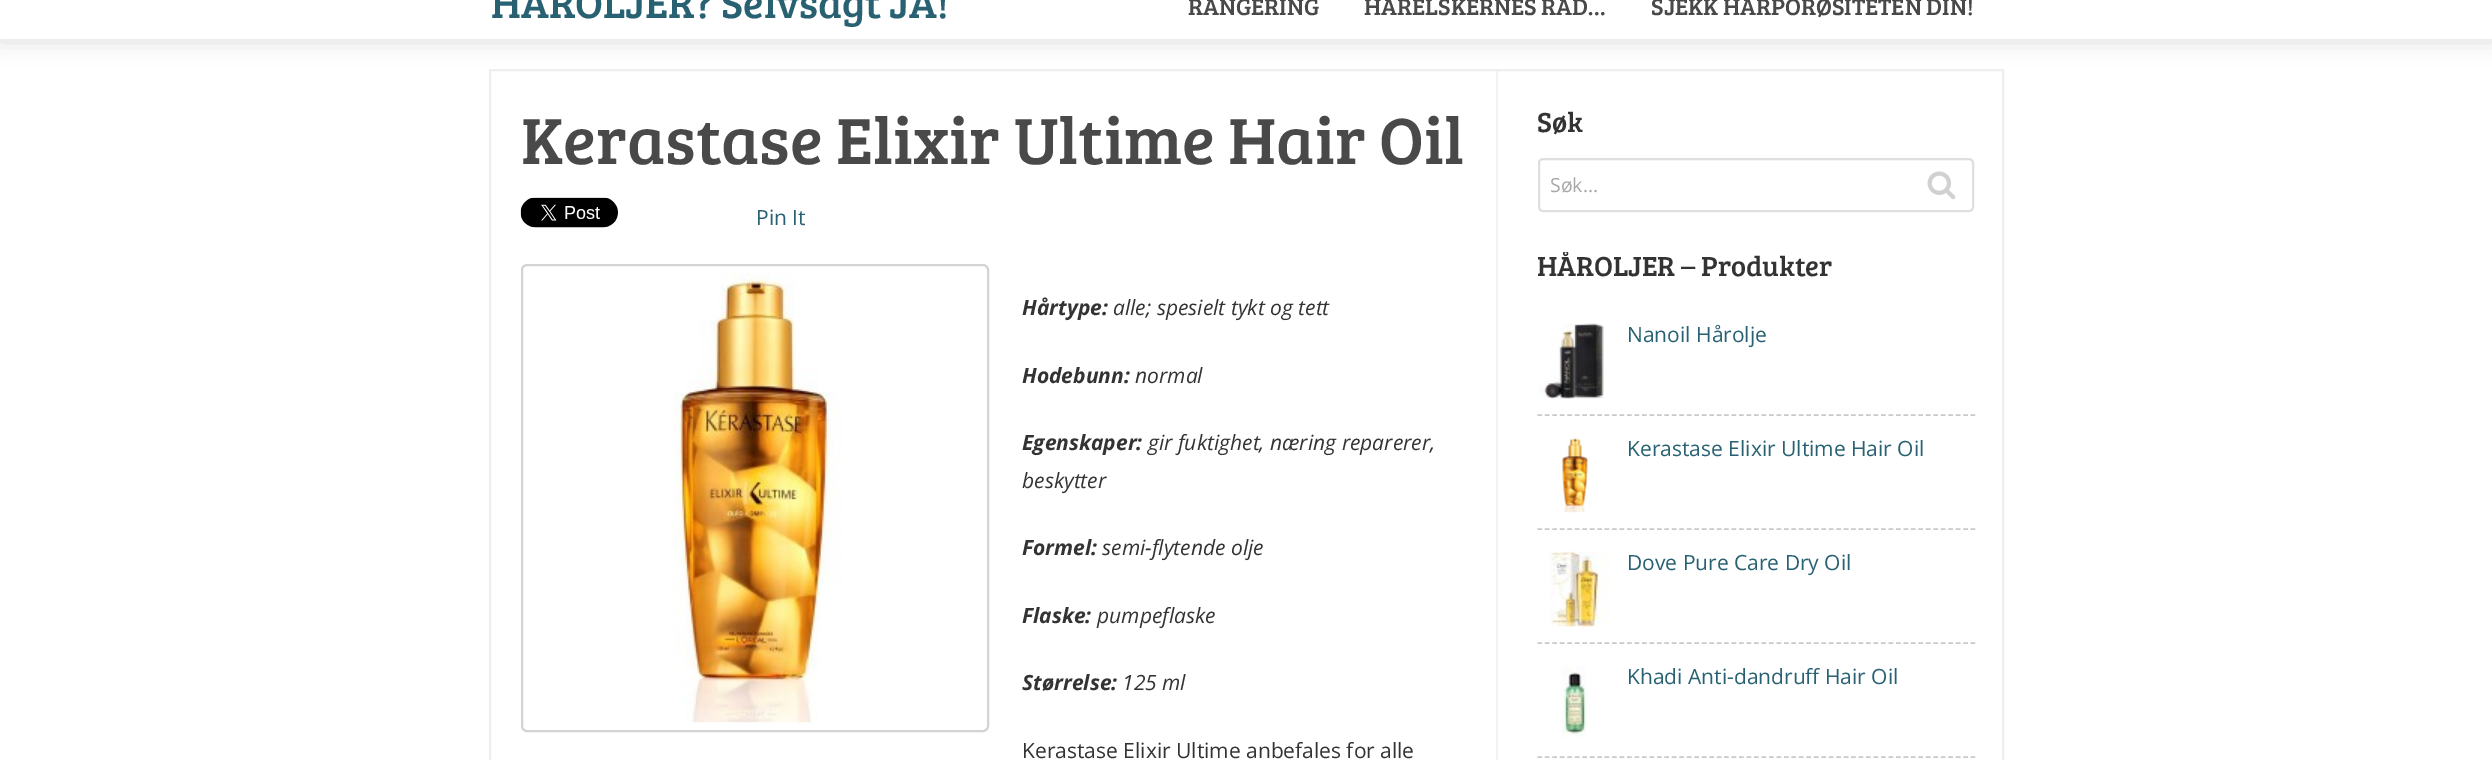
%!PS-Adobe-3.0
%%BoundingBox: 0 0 2492 760
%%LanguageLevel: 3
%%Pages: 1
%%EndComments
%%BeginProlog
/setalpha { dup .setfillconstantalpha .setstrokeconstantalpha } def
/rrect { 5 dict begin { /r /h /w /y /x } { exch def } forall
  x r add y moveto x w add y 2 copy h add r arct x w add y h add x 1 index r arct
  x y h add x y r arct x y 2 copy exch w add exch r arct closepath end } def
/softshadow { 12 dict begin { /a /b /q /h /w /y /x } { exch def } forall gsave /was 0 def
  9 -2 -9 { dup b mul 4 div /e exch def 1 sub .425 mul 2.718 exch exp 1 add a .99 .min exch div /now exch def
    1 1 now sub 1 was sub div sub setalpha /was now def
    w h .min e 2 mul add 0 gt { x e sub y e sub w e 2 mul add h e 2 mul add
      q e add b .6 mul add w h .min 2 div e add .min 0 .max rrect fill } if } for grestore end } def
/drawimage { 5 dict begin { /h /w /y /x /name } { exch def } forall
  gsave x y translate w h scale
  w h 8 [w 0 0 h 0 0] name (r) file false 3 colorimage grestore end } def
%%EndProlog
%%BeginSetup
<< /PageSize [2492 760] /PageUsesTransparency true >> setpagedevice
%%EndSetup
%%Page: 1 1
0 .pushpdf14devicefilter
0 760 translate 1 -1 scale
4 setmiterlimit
1 setgray
0 0 2492 760 rectfill
0.933 setgray
2 setlinewidth
490 70 1513 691 rectstroke
0.949 setgray
1496 71 2 689 rectfill
0 setgray
0 -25 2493 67 0 11 0.13 softshadow
1 setgray
0 0 2492 39 rectfill
(images/1.raw) 520 197 98 31 drawimage
0.827 setgray
522 265 466 466 5 rrect stroke
(images/2.raw) 673 273 169 450 drawimage
0.875 setgray
1539 159 434 52 4 rrect stroke
(images/3.raw) 1927 171 29 29 drawimage
0.788 setgray
1.5 setlinewidth
[4.5 2.97] 0 setdash
newpath 1537.5 415 moveto 1975.5 415 lineto stroke
(images/4.raw) 1538 323 66 76 drawimage
newpath 1537.5 529 moveto 1975.5 529 lineto stroke
(images/5.raw) 1562 438 26 75 drawimage
newpath 1537.5 643 moveto 1975.5 643 lineto stroke
(images/6.raw) 1549 551 61 76 drawimage
newpath 1537.5 757 moveto 1975.5 757 lineto stroke
(images/7.raw) 1561 666 26 71 drawimage
/BreeSerif-Regular [42 0 0 -42 0 0] selectfont
0.153 0.38 0.447 setrgbcolor
491 18 moveto (HÅROLJER? Selvsagt JA!) show
/BreeSerif-Regular [24 0 0 -24 0 0] selectfont
0.286 setgray
1188 15 moveto (RANGERING) show
1364 15 moveto (HÅRELSKERNES RÅD…) show
1651 15 moveto (SJEKK HÅRPORØSITETEN DIN!) show
/BreeSerif-Regular [67.5 0 0 -67.5 0 0] selectfont
521 164 moveto (Kerastase Elixir Ultime Hair Oil) show
/OpenSans-Regular [21 0 0 -21 0 0] selectfont
0.153 0.38 0.447 setrgbcolor
756 225 moveto (Pin It) show
/OpenSans-BoldItalic [21 0 0 -21 0 0] selectfont
0.2 setgray
1022 315 moveto (Hårtype:) show
/OpenSans-Italic [21 0 0 -21 0 0] selectfont
1113 315 moveto (alle; spesielt tykt og tett) show
/OpenSans-BoldItalic [21 0 0 -21 0 0] selectfont
1022 383 moveto (Hodebunn:) show
/OpenSans-Italic [21 0 0 -21 0 0] selectfont
1135 383 moveto (normal) show
/OpenSans-BoldItalic [21 0 0 -21 0 0] selectfont
1022 450 moveto (Egenskaper:) show
/OpenSans-Italic [21 0 0 -21 0 0] selectfont
1148 450 moveto (gir fuktighet, næring reparerer,) show
1022 488 moveto (beskytter) show
/OpenSans-BoldItalic [21 0 0 -21 0 0] selectfont
1022 555 moveto (Formel:) show
/OpenSans-Italic [21 0 0 -21 0 0] selectfont
1102 555 moveto (semi-flytende olje) show
/OpenSans-BoldItalic [21 0 0 -21 0 0] selectfont
1022 623 moveto (Flaske:) show
/OpenSans-Italic [21 0 0 -21 0 0] selectfont
1097 623 moveto (pumpeflaske) show
/OpenSans-BoldItalic [21 0 0 -21 0 0] selectfont
1022 690 moveto (Størrelse:) show
/OpenSans-Italic [21 0 0 -21 0 0] selectfont
1122 690 moveto (125 ml) show
/OpenSans-Regular [21 0 0 -21 0 0] selectfont
1022 758 moveto (Kerastase Elixir Ultime anbefales for alle) show
/BreeSerif-Regular [28.5 0 0 -28.5 0 0] selectfont
1537 132 moveto (Søk) show
/OpenSans-Regular [19.5 0 0 -19.5 0 0] selectfont
0.655 setgray
1550 192 moveto (Søk...) show
gsave
1538 252 438 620 rectclip
/BreeSerif-Regular [28.5 0 0 -28.5 0 0] selectfont
0.2 setgray
1537 276 moveto (HÅROLJER – Produkter) show
grestore
/OpenSans-Regular [21 0 0 -21 0 0] selectfont
0.153 0.38 0.447 setrgbcolor
1627 342 moveto (Nanoil Hårolje) show
1627 456 moveto (Kerastase Elixir Ultime Hair Oil) show
1627 570 moveto (Dove Pure Care Dry Oil) show
1627 684 moveto (Khadi Anti-dandruff Hair Oil) show
.poppdf14devicefilter showpage
%%EOF
